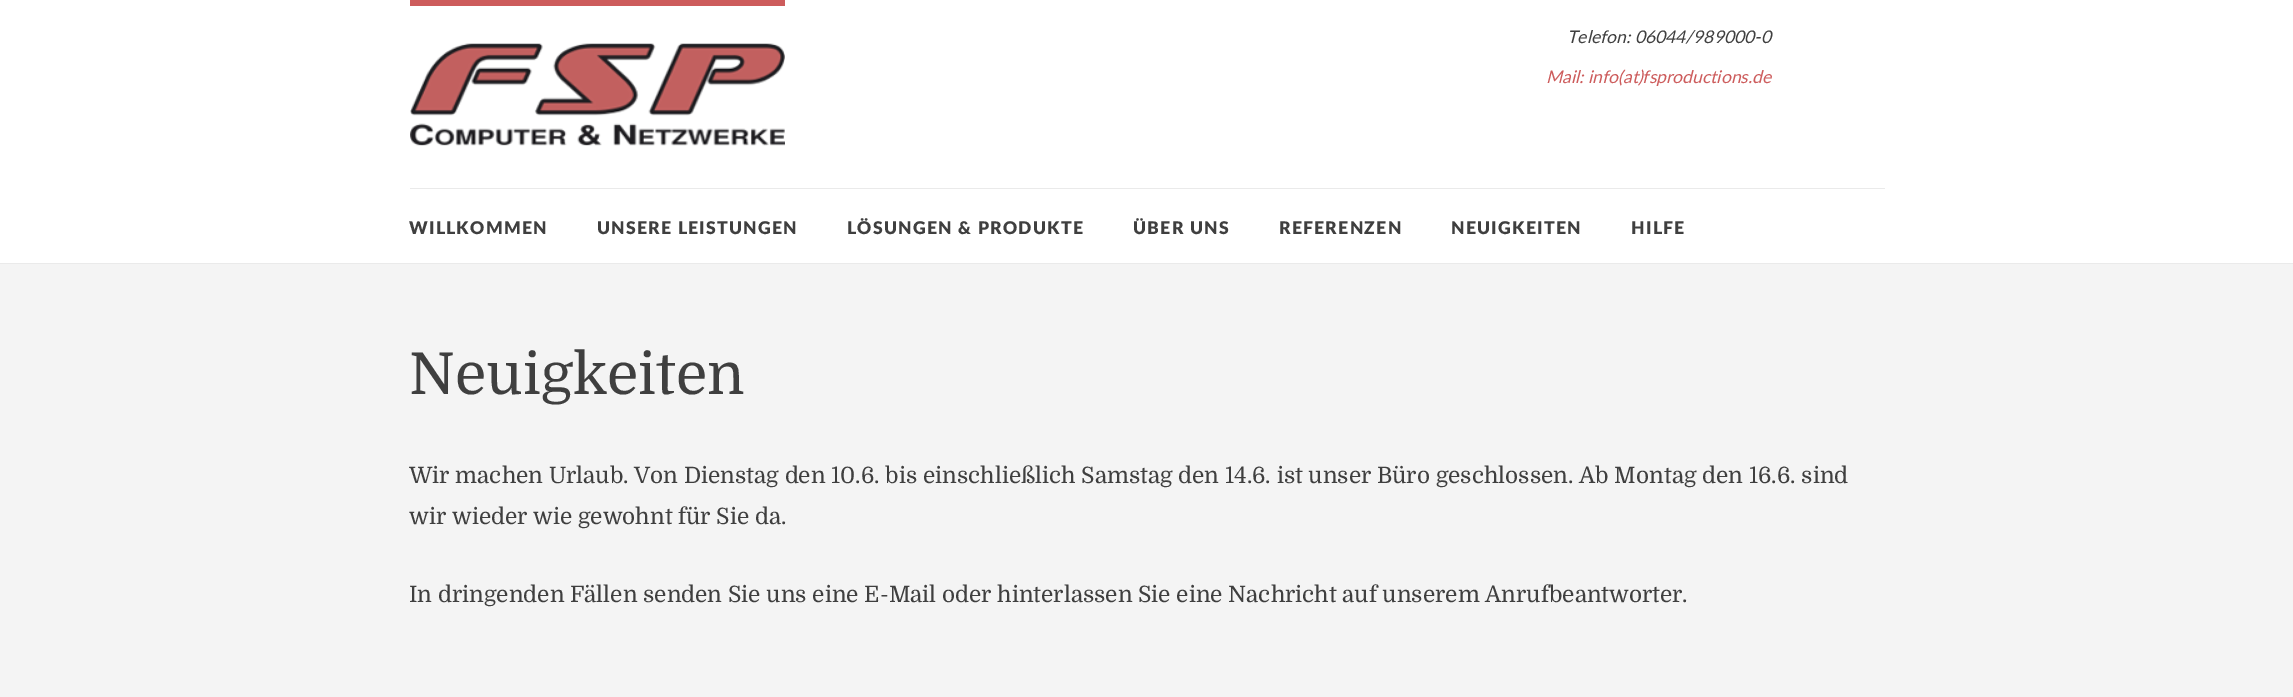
%!PS-Adobe-3.0
%%BoundingBox: 0 0 2293 697
%%LanguageLevel: 3
%%Pages: 1
%%EndComments
%%BeginProlog
/drawimage { 5 dict begin { /h /w /y /x /name } { exch def } forall
  gsave x y translate w h scale
  w h 8 [w 0 0 h 0 0] name (r) file false 3 colorimage grestore end } def
%%EndProlog
%%BeginSetup
<< /PageSize [2293 697] >> setpagedevice
%%EndSetup
%%Page: 1 1
0 697 translate 1 -1 scale
4 setmiterlimit
0.957 setgray
0 0 2293 697 rectfill
1 setgray
0 0 2293 263 rectfill
0.918 setgray
0 263 2293 1 rectfill
0.804 0.361 0.361 setrgbcolor
410 0 375 6 rectfill
(images/1.raw) 410 43 375 103 drawimage
0.918 setgray
410 188 1475 1 rectfill
/Lato-Italic [17.5 0 0 -17.5 0 0] selectfont
0.247 setgray
1567 43 moveto (Telefon: 06044/989000-0) show
0.804 0.361 0.361 setrgbcolor
1546 83 moveto (Mail: info\(at\)fsproductions.de) show
/Lato-Black [17.5 0 0 -17.5 0 0] selectfont
0.247 setgray
409 234 moveto 1.25 0 (WILLKOMMEN) ashow
597 234 moveto 1.25 0 (UNSERE LEISTUNGEN) ashow
847 234 moveto 1.25 0 (LÖSUNGEN & PRODUKTE) ashow
1133 234 moveto 1.25 0 (ÜBER UNS) ashow
1279 234 moveto 1.25 0 (REFERENZEN) ashow
1451 234 moveto 1.25 0 (NEUIGKEITEN) ashow
1631 234 moveto 1.25 0 (HILFE) ashow
/Domine-Regular [57.5 0 0 -57.5 0 0] selectfont
409 394 moveto (Neuigkeiten) show
/Domine-Regular [22.5 0 0 -22.5 0 0] selectfont
409 483 moveto (Wir machen Urlaub. Von Dienstag den 10.6. bis einschließlich Samstag den 14.6. ist unser Büro geschlossen. Ab Montag den 16.6. sind) show
409 524 moveto (wir wieder wie gewohnt für Sie da.) show
409 602 moveto (In dringenden Fällen senden Sie uns eine E-Mail oder hinterlassen Sie eine Nachricht auf unserem Anrufbeantworter.) show
showpage
%%EOF
